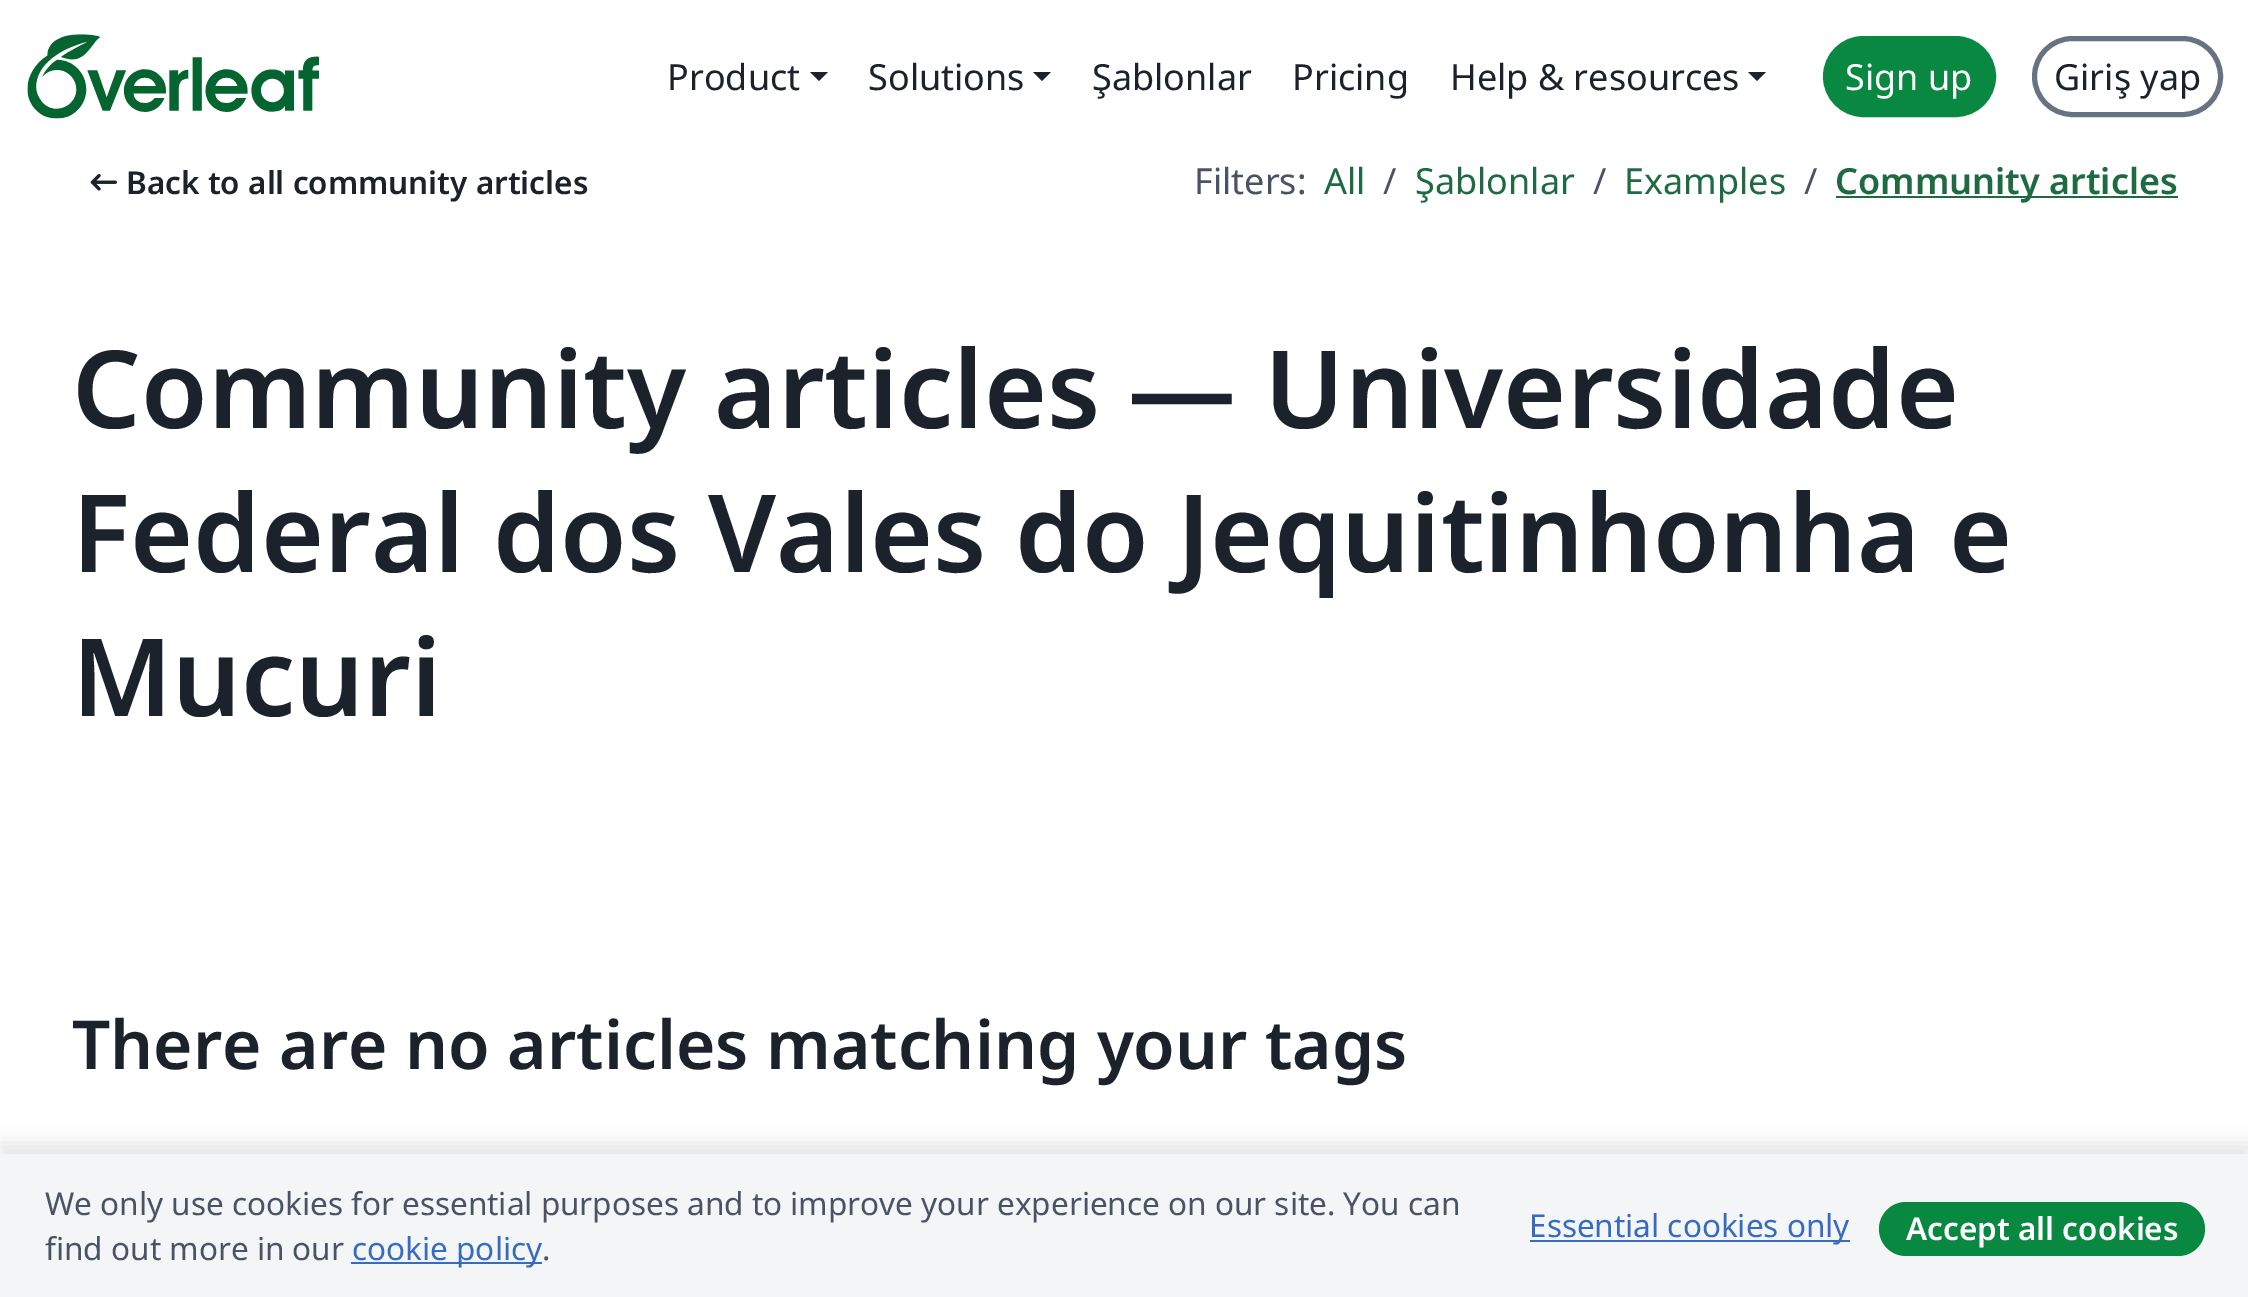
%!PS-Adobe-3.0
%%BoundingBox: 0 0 2248 1297
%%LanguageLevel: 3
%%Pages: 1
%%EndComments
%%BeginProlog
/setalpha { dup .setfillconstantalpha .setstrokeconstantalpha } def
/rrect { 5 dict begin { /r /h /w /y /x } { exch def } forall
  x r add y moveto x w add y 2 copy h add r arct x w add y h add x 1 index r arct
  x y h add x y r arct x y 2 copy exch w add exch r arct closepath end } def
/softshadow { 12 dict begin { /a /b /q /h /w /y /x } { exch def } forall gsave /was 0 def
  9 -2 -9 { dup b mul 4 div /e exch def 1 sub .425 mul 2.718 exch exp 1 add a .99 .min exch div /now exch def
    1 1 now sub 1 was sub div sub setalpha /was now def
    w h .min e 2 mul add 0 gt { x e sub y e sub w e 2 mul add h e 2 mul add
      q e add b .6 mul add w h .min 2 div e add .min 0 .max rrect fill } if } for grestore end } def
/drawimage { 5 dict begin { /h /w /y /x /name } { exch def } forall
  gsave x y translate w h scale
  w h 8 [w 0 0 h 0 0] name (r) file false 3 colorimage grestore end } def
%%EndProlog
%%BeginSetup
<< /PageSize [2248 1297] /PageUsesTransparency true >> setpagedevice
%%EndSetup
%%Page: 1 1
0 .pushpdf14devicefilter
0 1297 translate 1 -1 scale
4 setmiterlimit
1 setgray
0 0 2248 1297 rectfill
(images/1.raw) 27 34 293 85 drawimage
0.106 0.133 0.173 setrgbcolor
newpath 810 72 moveto 828 72 lineto 819 81 lineto closepath fill
newpath 1033 72 moveto 1051 72 lineto 1042 81 lineto closepath fill
newpath 1748 72 moveto 1766 72 lineto 1757 81 lineto closepath fill
0.035 0.533 0.259 setrgbcolor
1825.5 38.5 168 76 38 rrect gsave fill grestore
5 setlinewidth
stroke
0.404 0.447 0.514 setrgbcolor
2034.5 38.5 186 76 38 rrect stroke
(images/2.raw) 90 174 27 17 drawimage
0.118 0.42 0.255 setrgbcolor
1836 196 342 2 rectfill
0 setgray
0 1143 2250 144 0 9 0.1 softshadow
0.957 0.961 0.965 setrgbcolor
0 1154 2248 143 rectfill
0.212 0.424 0.749 setrgbcolor
351 1262 191 2 rectfill
1530 1240 320 2 rectfill
0.035 0.533 0.259 setrgbcolor
1879 1202 326 54 27 rrect fill
/NotoSans-Regular [36 0 0 -36 0 0] selectfont
0.106 0.133 0.173 setrgbcolor
667 90 moveto (Product) show
868 90 moveto (Solutions) show
1092 90 moveto (Şablonlar) show
1292 90 moveto (Pricing) show
1450 90 moveto (Help & resources) show
1 setgray
1845 90 moveto (Sign up) show
0.106 0.133 0.173 setrgbcolor
2054 90 moveto (Giriş yap) show
/NotoSans-SemiBold [31.5 0 0 -31.5 0 0] selectfont
126 194 moveto (Back to all community articles) show
/NotoSans-Regular [36 0 0 -36 0 0] selectfont
0.286 0.325 0.396 setrgbcolor
1194 194 moveto (Filters:) show
0.118 0.42 0.255 setrgbcolor
1324 194 moveto (All) show
0.286 0.325 0.396 setrgbcolor
1383 194 moveto (/) show
0.118 0.42 0.255 setrgbcolor
1415 194 moveto (Şablonlar) show
0.286 0.325 0.396 setrgbcolor
1593 194 moveto (/) show
0.118 0.42 0.255 setrgbcolor
1624 194 moveto (Examples) show
0.286 0.325 0.396 setrgbcolor
1804 194 moveto (/) show
/NotoSans-SemiBold [36 0 0 -36 0 0] selectfont
0.118 0.42 0.255 setrgbcolor
1835 194 moveto (Community articles) show
/NotoSans-SemiBold [108 0 0 -108 0 0] selectfont
0.106 0.133 0.173 setrgbcolor
72 428 moveto (Community articles — Universidade) show
72 572 moveto (Federal dos Vales do Jequitinhonha e) show
72 716 moveto (Mucuri) show
/NotoSans-SemiBold [67.5 0 0 -67.5 0 0] selectfont
72 1069 moveto (There are no articles matching your tags) show
/NotoSans-Regular [31.5 0 0 -31.5 0 0] selectfont
0.286 0.325 0.396 setrgbcolor
45 1215 moveto (We only use cookies for essential purposes and to improve your experience on our site. You can) show
45 1260 moveto (find out more in our) show
0.212 0.424 0.749 setrgbcolor
352 1260 moveto (cookie policy) show
0.286 0.325 0.396 setrgbcolor
542 1260 moveto (.) show
0.212 0.424 0.749 setrgbcolor
1529 1237 moveto (Essential cookies only) show
/NotoSans-SemiBold [31.5 0 0 -31.5 0 0] selectfont
1 setgray
1906 1240 moveto (Accept all cookies) show
.poppdf14devicefilter showpage
%%EOF
